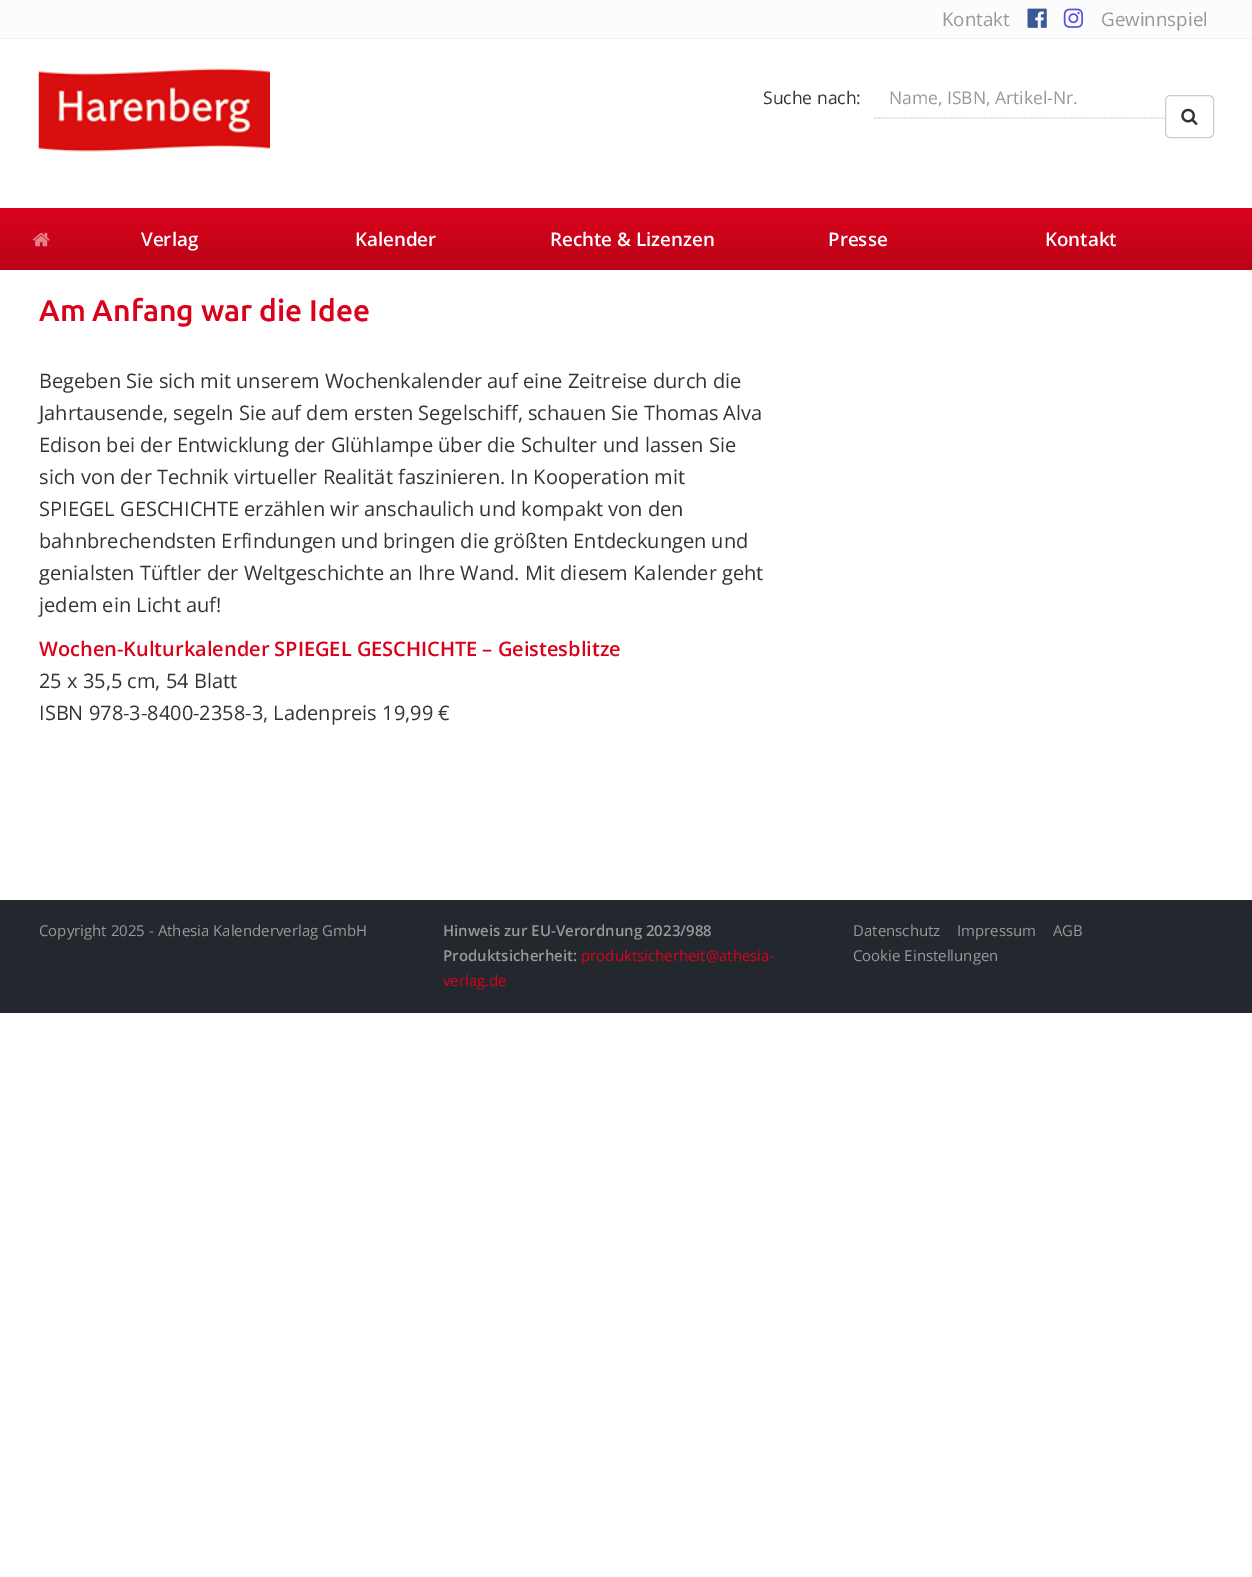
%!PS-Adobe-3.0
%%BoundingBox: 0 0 1252 1577
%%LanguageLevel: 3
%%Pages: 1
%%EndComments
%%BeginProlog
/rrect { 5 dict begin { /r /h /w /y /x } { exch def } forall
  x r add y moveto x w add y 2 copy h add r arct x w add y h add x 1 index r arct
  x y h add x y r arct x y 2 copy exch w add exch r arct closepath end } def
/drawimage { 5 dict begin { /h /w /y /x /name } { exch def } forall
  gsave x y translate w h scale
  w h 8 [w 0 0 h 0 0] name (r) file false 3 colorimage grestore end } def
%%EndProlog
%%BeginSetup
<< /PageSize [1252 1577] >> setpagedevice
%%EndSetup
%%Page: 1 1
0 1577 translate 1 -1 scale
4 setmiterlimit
1 setgray
0 0 1252 1577 rectfill
0.988 setgray
0 0 1252 38 rectfill
0.933 setgray
0 38 1252 1 rectfill
(images/1.raw) 1027 8 20 20 drawimage
(images/2.raw) 1063 8 21 20 drawimage
(images/3.raw) 38 68 232 84 drawimage
0.8 setgray
1.2 setlinewidth
[1.25 1.25] 0 setdash
newpath 874 118 moveto 1165 118 lineto stroke
1 setlinewidth
[] 0 setdash
1165.5 95.5 48 42 4.5 rrect stroke
(images/4.raw) 1181 108 17 17 drawimage
gsave newpath 0 208 moveto 1252 208 lineto 1252 270 lineto 0 270 lineto closepath clip newpath
<< /ShadingType 2 /ColorSpace /DeviceRGB /Coords [626 207 626 270] /Extend [true true] /Function << /FunctionType 2 /Domain [0 1] /C0 [0.859 0.012 0.11] /C1 [0.729 0.012 0.094] /N 1 >> >> shfill grestore
(images/5.raw) 32 232 18 15 drawimage
0.137 0.157 0.18 setrgbcolor
0 900 1252 113 rectfill
/OpenSans-Regular [18.75 0 0 -18.75 0 0] selectfont
0.6 setgray
942 26 moveto (Kontakt) show
1101 26 moveto (Gewinnspiel) show
/OpenSans-Regular [17.5 0 0 -17.5 0 0] selectfont
0.2 setgray
763 104 moveto (Suche nach:) show
0.6 setgray
889 104 moveto (Name, ISBN, Artikel-Nr.) show
/OpenSans-SemiBold [18.75 0 0 -18.75 0 0] selectfont
1 setgray
141 246 moveto (Verlag) show
355 246 moveto (Kalender) show
550 246 moveto (Rechte & Lizenzen) show
828 246 moveto (Presse) show
1045 246 moveto (Kontakt) show
/Ubuntu-Medium [30 0 0 -30 0 0] selectfont
0.855 0.008 0.102 setrgbcolor
39 321 moveto (Am Anfang war die Idee) show
/OpenSans-Regular [20 0 0 -20 0 0] selectfont
0.2 setgray
39 388 moveto (Begeben Sie sich mit unserem Wochenkalender auf eine Zeitreise durch die) show
39 420 moveto (Jahrtausende, segeln Sie auf dem ersten Segelschiff, schauen Sie Thomas Alva) show
39 452 moveto (Edison bei der Entwicklung der Glühlampe über die Schulter und lassen Sie) show
39 484 moveto (sich von der Technik virtueller Realität faszinieren. In Kooperation mit) show
39 516 moveto (SPIEGEL GESCHICHTE erzählen wir anschaulich und kompakt von den) show
39 548 moveto (bahnbrechendsten Erfindungen und bringen die größten Entdeckungen und) show
39 580 moveto (genialsten Tüftler der Weltgeschichte an Ihre Wand. Mit diesem Kalender geht) show
39 612 moveto (jedem ein Licht auf!) show
/OpenSans-SemiBold [20 0 0 -20 0 0] selectfont
0.855 0.008 0.102 setrgbcolor
39 656 moveto (Wochen-Kulturkalender SPIEGEL GESCHICHTE – Geistesblitze) show
/OpenSans-Regular [20 0 0 -20 0 0] selectfont
0.2 setgray
39 688 moveto (25 x 35,5 cm, 54 Blatt) show
39 720 moveto (ISBN 978-3-8400-2358-3, Ladenpreis 19,99 €) show
/OpenSans-Regular [15 0 0 -15 0 0] selectfont
0.6 setgray
39 936 moveto (Copyright 2025 - Athesia Kalenderverlag GmbH) show
/OpenSans-SemiBold [15 0 0 -15 0 0] selectfont
443 936 moveto (Hinweis zur EU-Verordnung 2023/988) show
443 961 moveto (Produktsicherheit:) show
/OpenSans-Regular [15 0 0 -15 0 0] selectfont
0.855 0.008 0.102 setrgbcolor
581 961 moveto (produktsicherheit@athesia-) show
443 986 moveto (verlag.de) show
0.6 setgray
853 936 moveto (Datenschutz) show
957 936 moveto (Impressum) show
1053 936 moveto (AGB) show
853 961 moveto (Cookie Einstellungen) show
showpage
%%EOF
